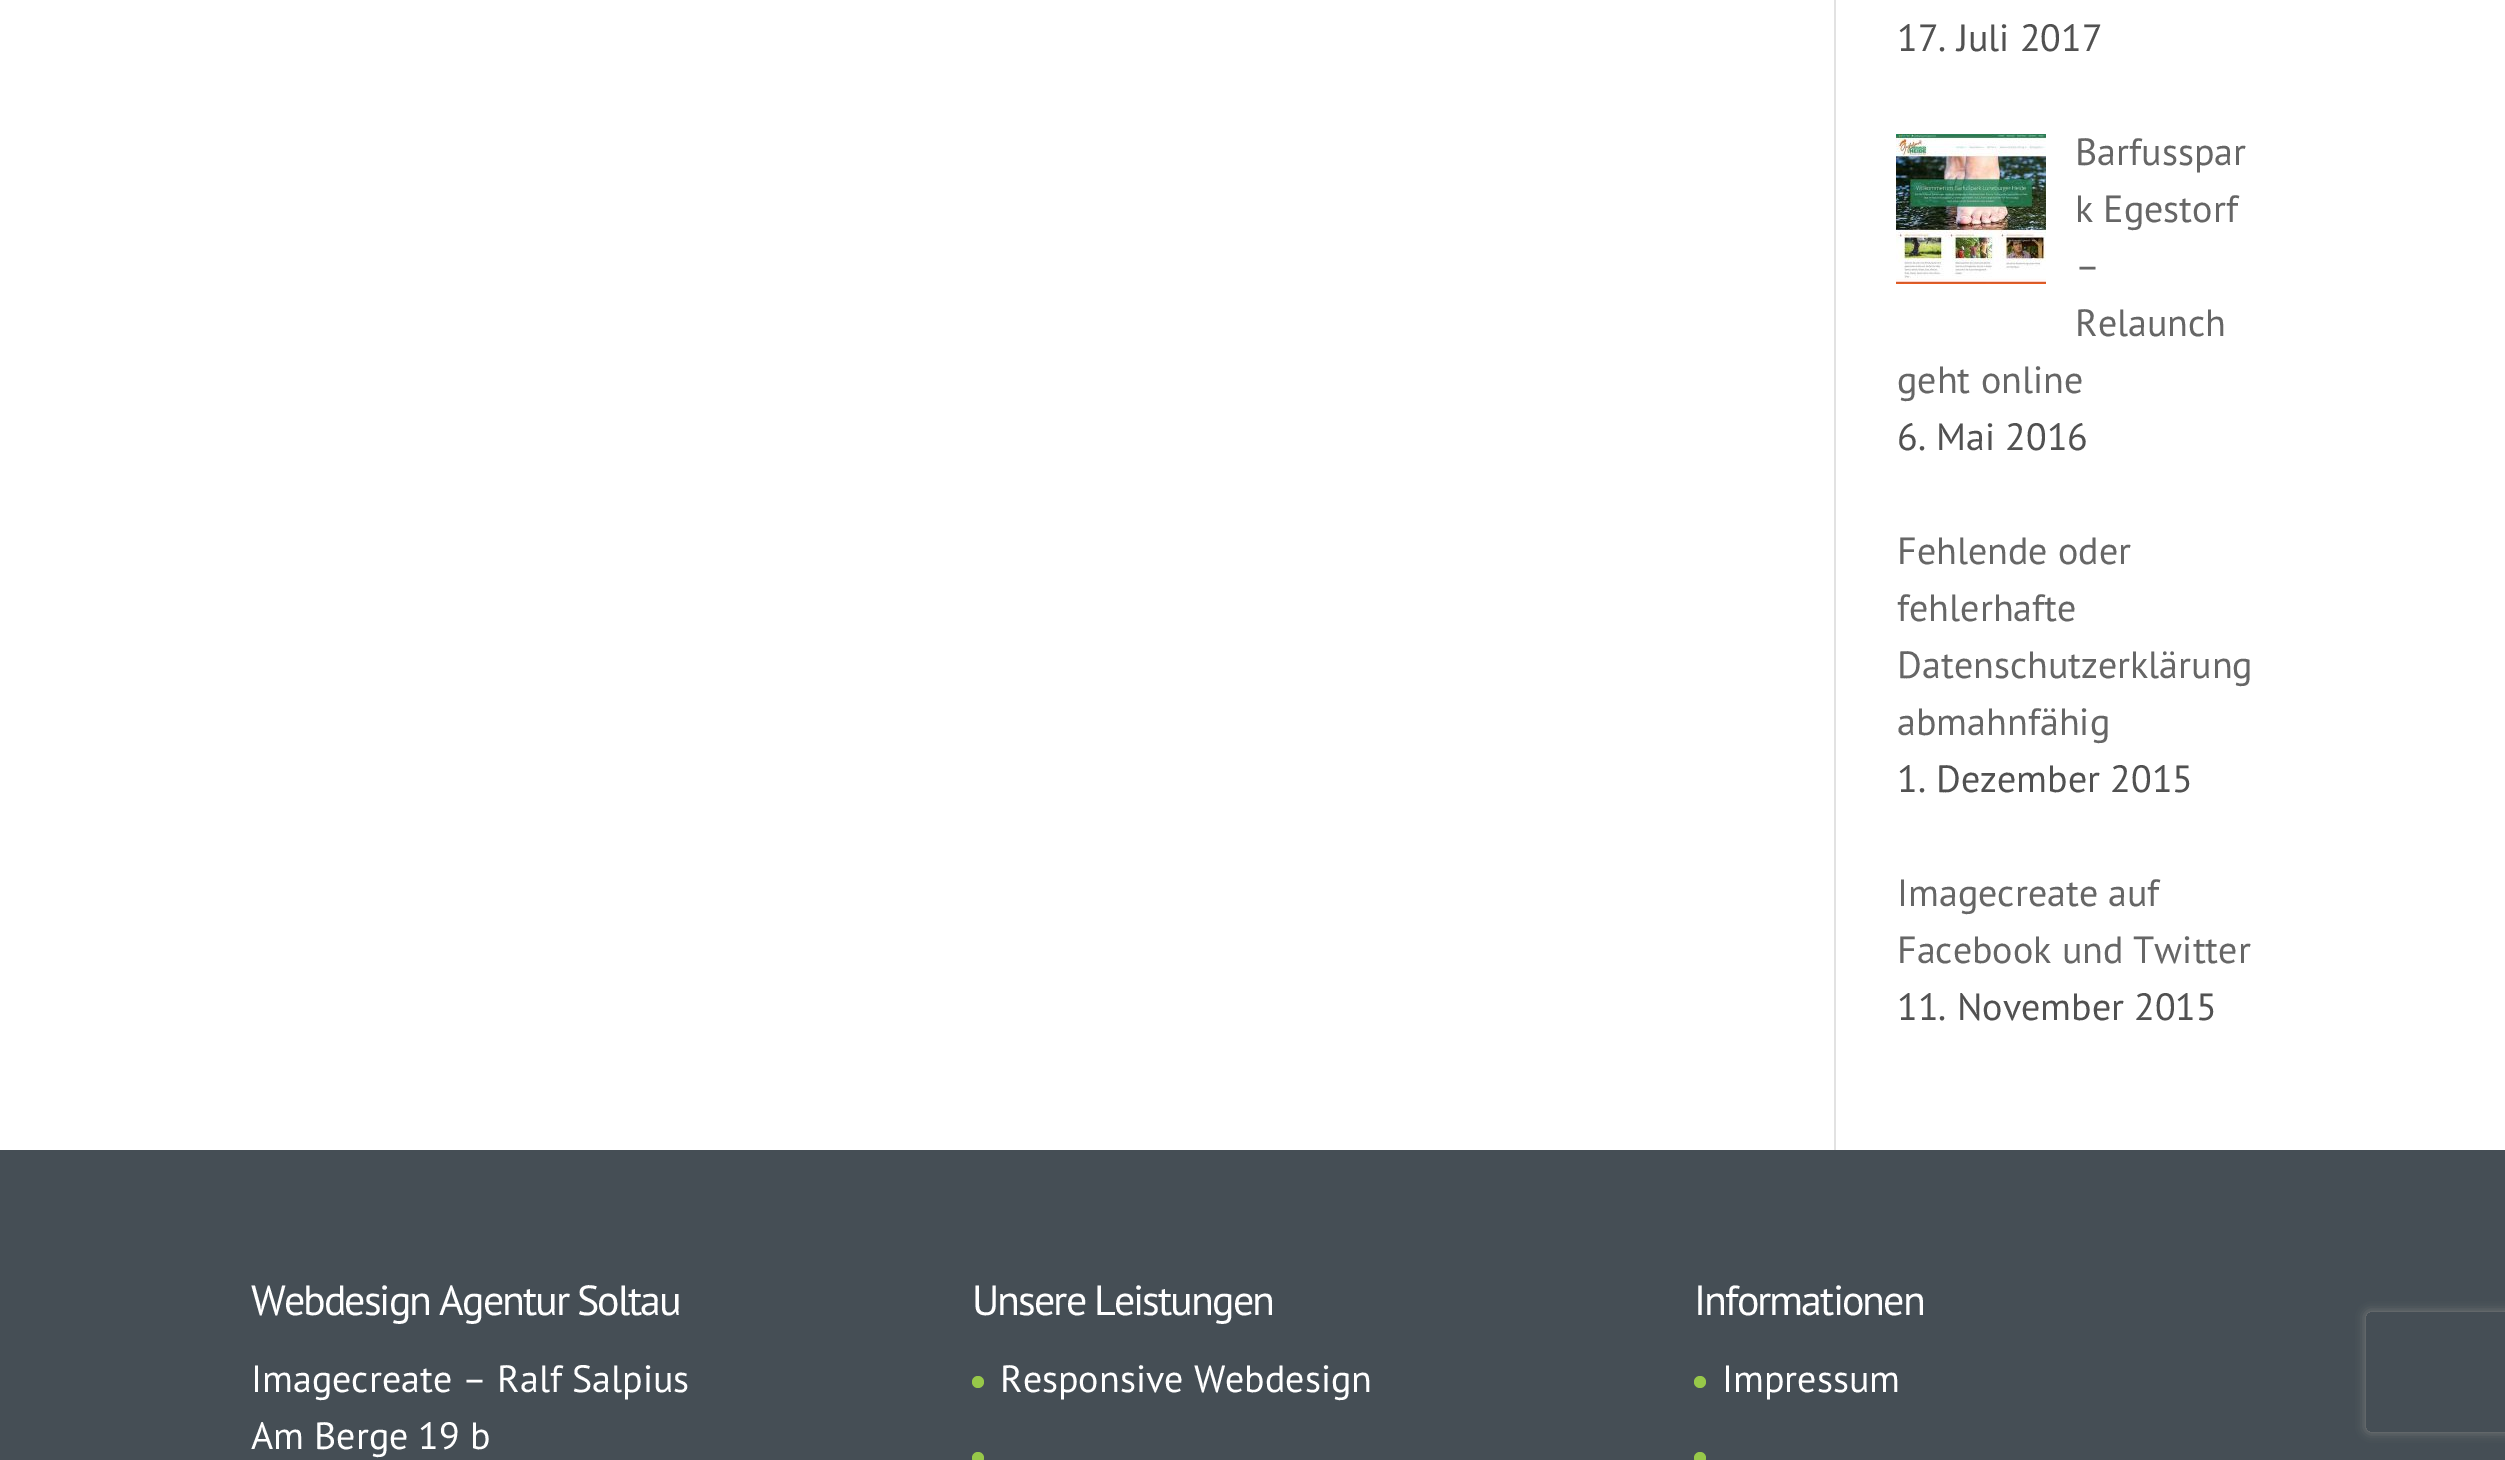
%!PS-Adobe-3.0
%%BoundingBox: 0 0 2505 1460
%%LanguageLevel: 3
%%Pages: 1
%%EndComments
%%BeginProlog
/setalpha { dup .setfillconstantalpha .setstrokeconstantalpha } def
/rrect { 5 dict begin { /r /h /w /y /x } { exch def } forall
  x r add y moveto x w add y 2 copy h add r arct x w add y h add x 1 index r arct
  x y h add x y r arct x y 2 copy exch w add exch r arct closepath end } def
/softshadow { 12 dict begin { /a /b /q /h /w /y /x } { exch def } forall gsave /was 0 def
  9 -2 -9 { dup b mul 4 div /e exch def 1 sub .425 mul 2.718 exch exp 1 add a .99 .min exch div /now exch def
    1 1 now sub 1 was sub div sub setalpha /was now def
    w h .min e 2 mul add 0 gt { x e sub y e sub w e 2 mul add h e 2 mul add
      q e add b .6 mul add w h .min 2 div e add .min 0 .max rrect fill } if } for grestore end } def
/drawimage { 5 dict begin { /h /w /y /x /name } { exch def } forall
  gsave x y translate w h scale
  w h 8 [w 0 0 h 0 0] name (r) file false 3 colorimage grestore end } def
%%EndProlog
%%BeginSetup
<< /PageSize [2505 1460] /PageUsesTransparency true >> setpagedevice
%%EndSetup
%%Page: 1 1
0 .pushpdf14devicefilter
0 1460 translate 1 -1 scale
4 setmiterlimit
1 setgray
0 0 2505 1460 rectfill
0.886 setgray
1834 0 2 1150 rectfill
(images/1.raw) 1896 134 150 150 drawimage
0.271 0.306 0.333 setrgbcolor
0 1150 2505 310 rectfill
0.592 0.784 0.286 setrgbcolor
newpath 978 1382 6 0 360 arc closepath fill
newpath 978 1458 6 0 360 arc closepath fill
newpath 1700 1382 6 0 360 arc closepath fill
newpath 1700 1458 6 0 360 arc closepath fill
gsave
newpath 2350 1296 moveto 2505 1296 lineto 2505 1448 lineto 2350 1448 lineto closepath 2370 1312 moveto 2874 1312 lineto 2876 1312 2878 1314 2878 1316 curveto 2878 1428 lineto 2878 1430 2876 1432 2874 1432 curveto 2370 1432 lineto 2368 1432 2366 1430 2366 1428 curveto 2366 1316 lineto 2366 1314 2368 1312 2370 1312 curveto closepath eoclip newpath
0.502 setgray
2366 1312 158 120 4 5 1 softshadow
grestore
/PTSans-Regular [38 0 0 -38 0 0] selectfont
0.318 setgray
1897 51 moveto (17. Juli 2017) show
0.4 setgray
2075 165 moveto (Barfusspar) show
2075 222 moveto (k Egestorf) show
2075 279 moveto (–) show
2075 336 moveto (Relaunch) show
1897 393 moveto (geht online) show
0.318 setgray
1897 450 moveto (6. Mai 2016) show
0.4 setgray
1897 564 moveto (Fehlende oder) show
1897 621 moveto (fehlerhafte) show
1897 678 moveto (Datenschutzerklärung) show
1897 735 moveto (abmahnfähig) show
0.318 setgray
1897 792 moveto (1. Dezember 2015) show
0.4 setgray
1897 906 moveto (Imagecreate auf) show
1897 963 moveto (Facebook und Twitter) show
0.318 setgray
1897 1020 moveto (11. November 2015) show
/PTSans-Regular [42 0 0 -42 0 0] selectfont
1 setgray
251 1315 moveto -2 0 (Webdesign Agentur Soltau) ashow
/PTSans-Regular [38 0 0 -38 0 0] selectfont
251 1392 moveto (Imagecreate – Ralf Salpius) show
251 1449 moveto (Am Berge 19 b) show
/PTSans-Regular [42 0 0 -42 0 0] selectfont
972 1315 moveto -2 0 (Unsere Leistungen) ashow
/PTSans-Regular [38 0 0 -38 0 0] selectfont
1000 1392 moveto (Responsive Webdesign) show
/PTSans-Regular [42 0 0 -42 0 0] selectfont
1694 1315 moveto -2 0 (Informationen) ashow
/PTSans-Regular [38 0 0 -38 0 0] selectfont
1722 1392 moveto (Impressum) show
.poppdf14devicefilter showpage
%%EOF
